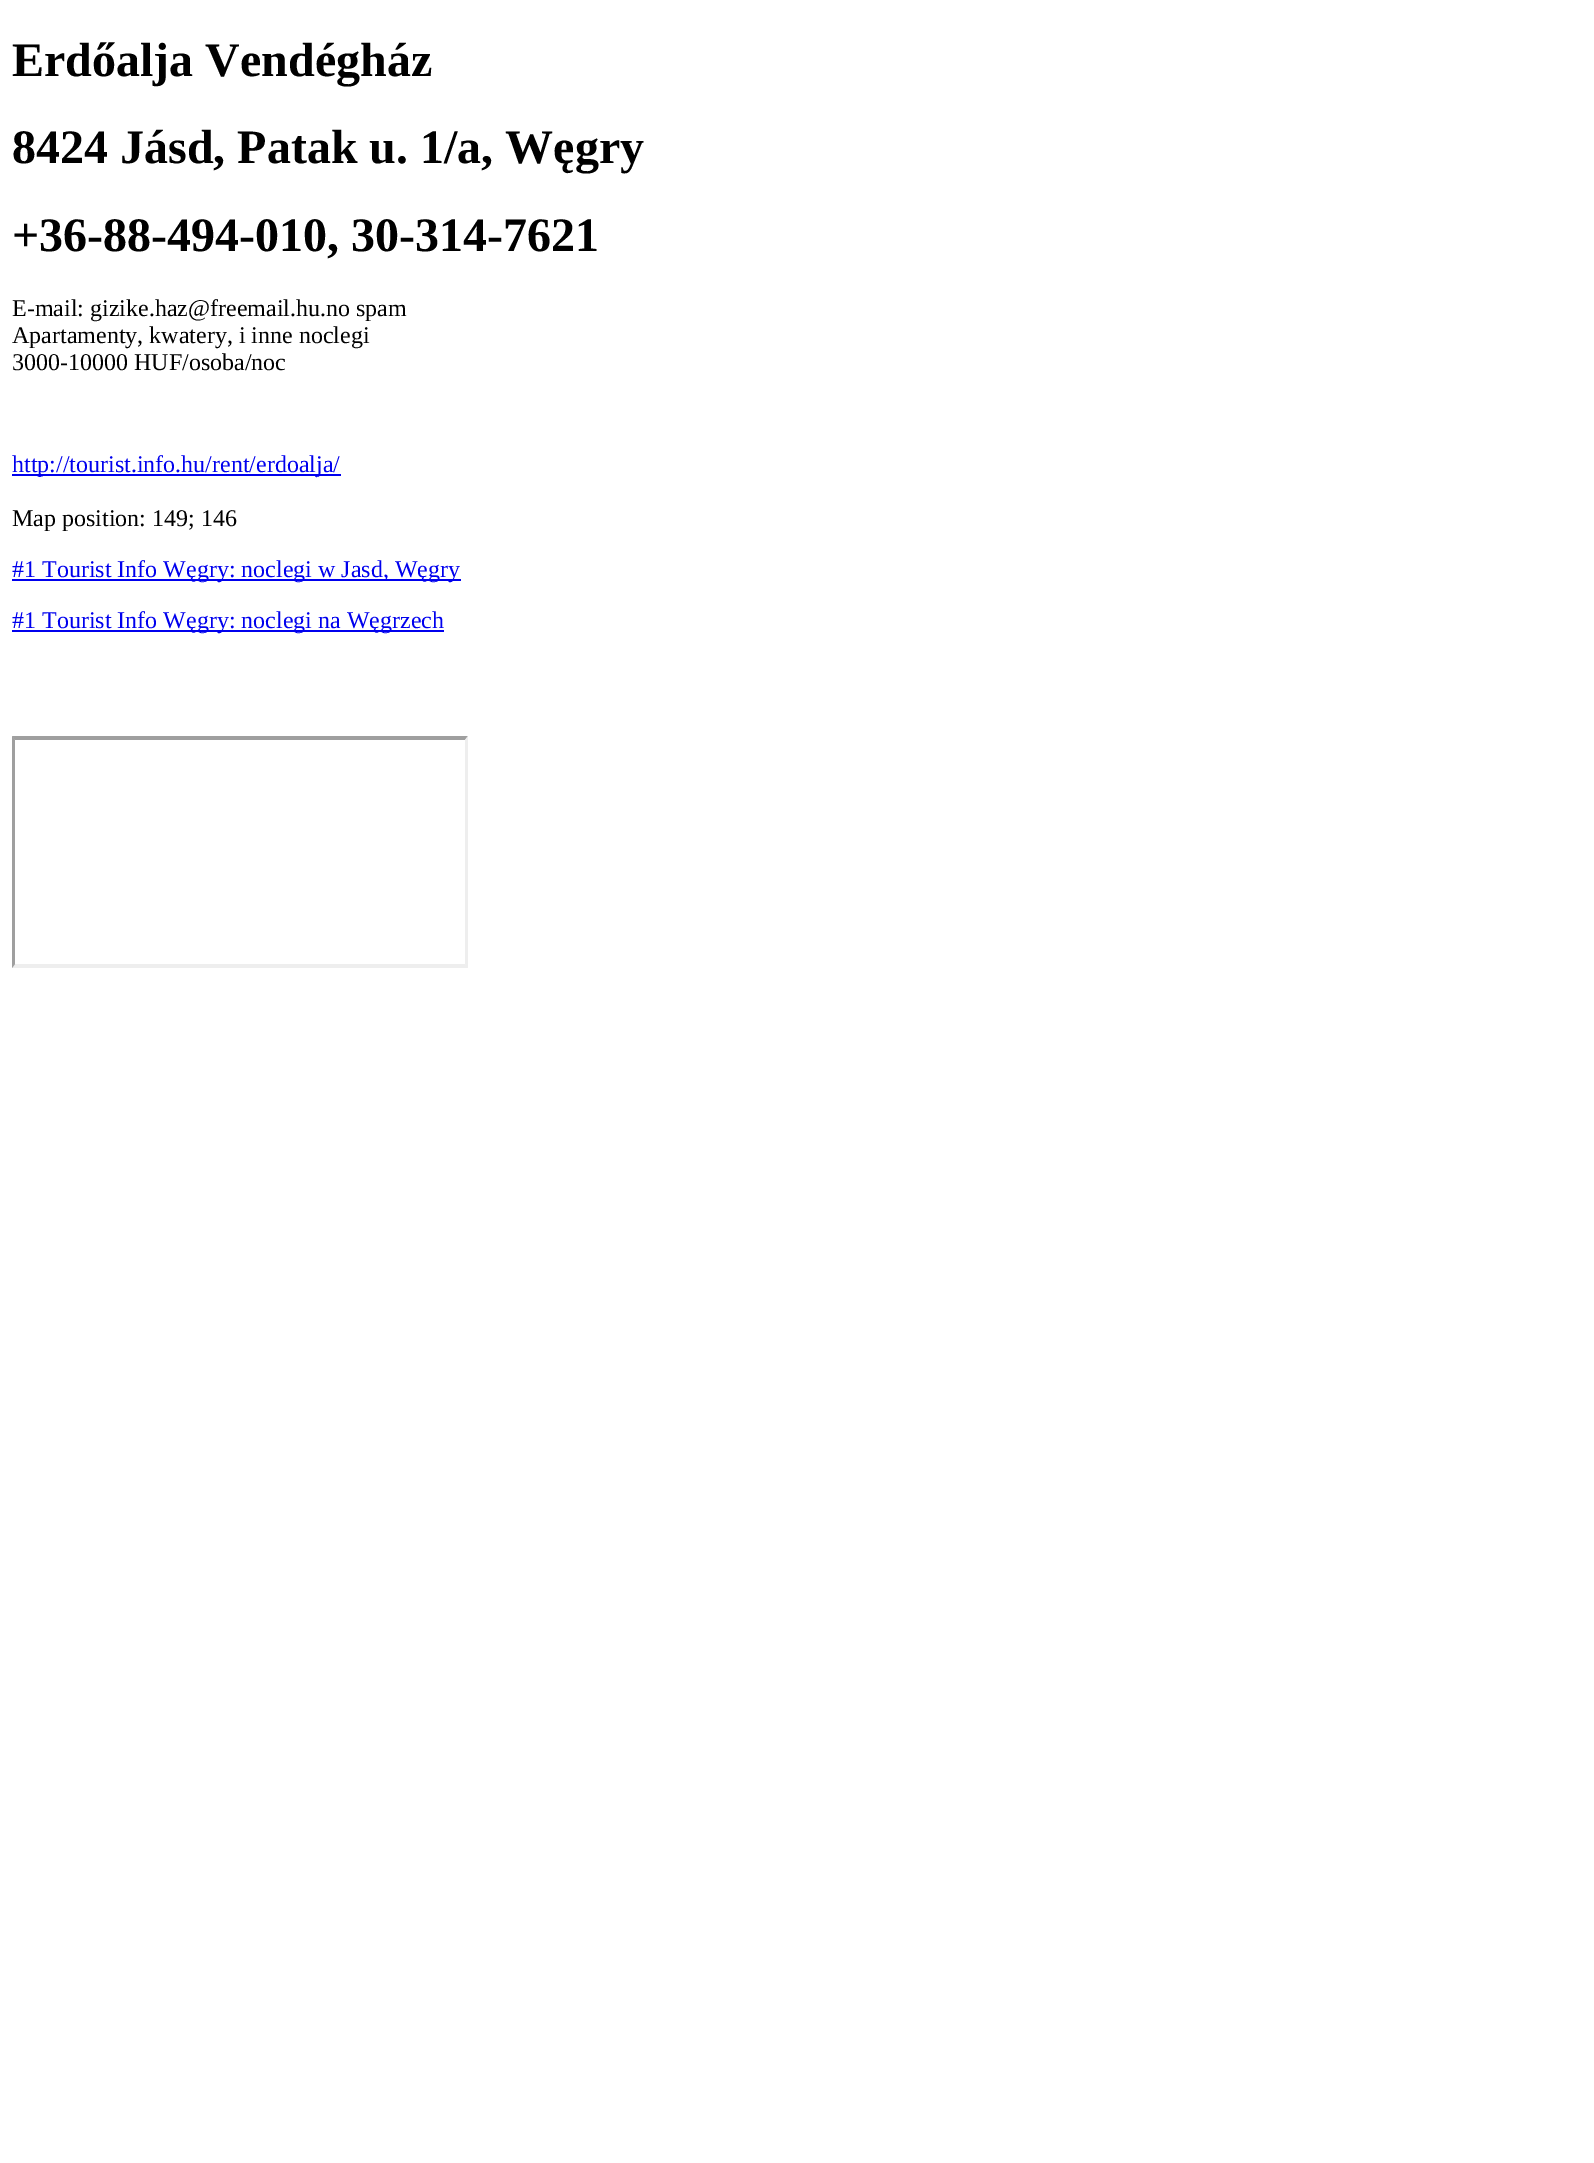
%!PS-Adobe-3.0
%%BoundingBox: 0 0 1594 2163
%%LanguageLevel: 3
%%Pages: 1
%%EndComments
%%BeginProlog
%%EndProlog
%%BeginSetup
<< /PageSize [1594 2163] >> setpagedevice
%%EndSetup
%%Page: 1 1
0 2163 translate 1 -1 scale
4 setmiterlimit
1 setgray
0 0 1594 2163 rectfill
0 0 0.933 setrgbcolor
12 474 329 2 rectfill
12 579 449 2 rectfill
12 630 432 2 rectfill
0.624 setgray
newpath 12 736 moveto 468 736 lineto 465 740 lineto 15 740 lineto closepath fill
0.933 setgray
newpath 468 736 moveto 468 968 lineto 465 964 lineto 465 740 lineto closepath fill
newpath 468 968 moveto 12 968 lineto 15 964 lineto 465 964 lineto closepath fill
0.624 setgray
newpath 12 968 moveto 12 736 lineto 15 740 lineto 15 964 lineto closepath fill
/LiberationSerif-Bold [48 0 0 -48 0 0] selectfont
0 setgray
12 76 moveto (Erdőalja Vendégház) show
12 163 moveto (8424 Jásd, Patak u. 1/a, Węgry) show
12 251 moveto (+36-88-494-010, 30-314-7621) show
/LiberationSerif-Regular [24 0 0 -24 0 0] selectfont
12 316 moveto (E-mail: gizike.haz@freemail.hu.no spam) show
12 343 moveto (Apartamenty, kwatery, i inne noclegi) show
12 370 moveto (3000-10000 HUF/osoba/noc) show
0 0 0.933 setrgbcolor
12 472 moveto (http://tourist.info.hu/rent/erdoalja/) show
0 setgray
12 526 moveto (Map position: 149; 146) show
0 0 0.933 setrgbcolor
12 577 moveto (#1 Tourist Info Węgry: noclegi w Jasd, Węgry) show
12 628 moveto (#1 Tourist Info Węgry: noclegi na Węgrzech) show
showpage
%%EOF
